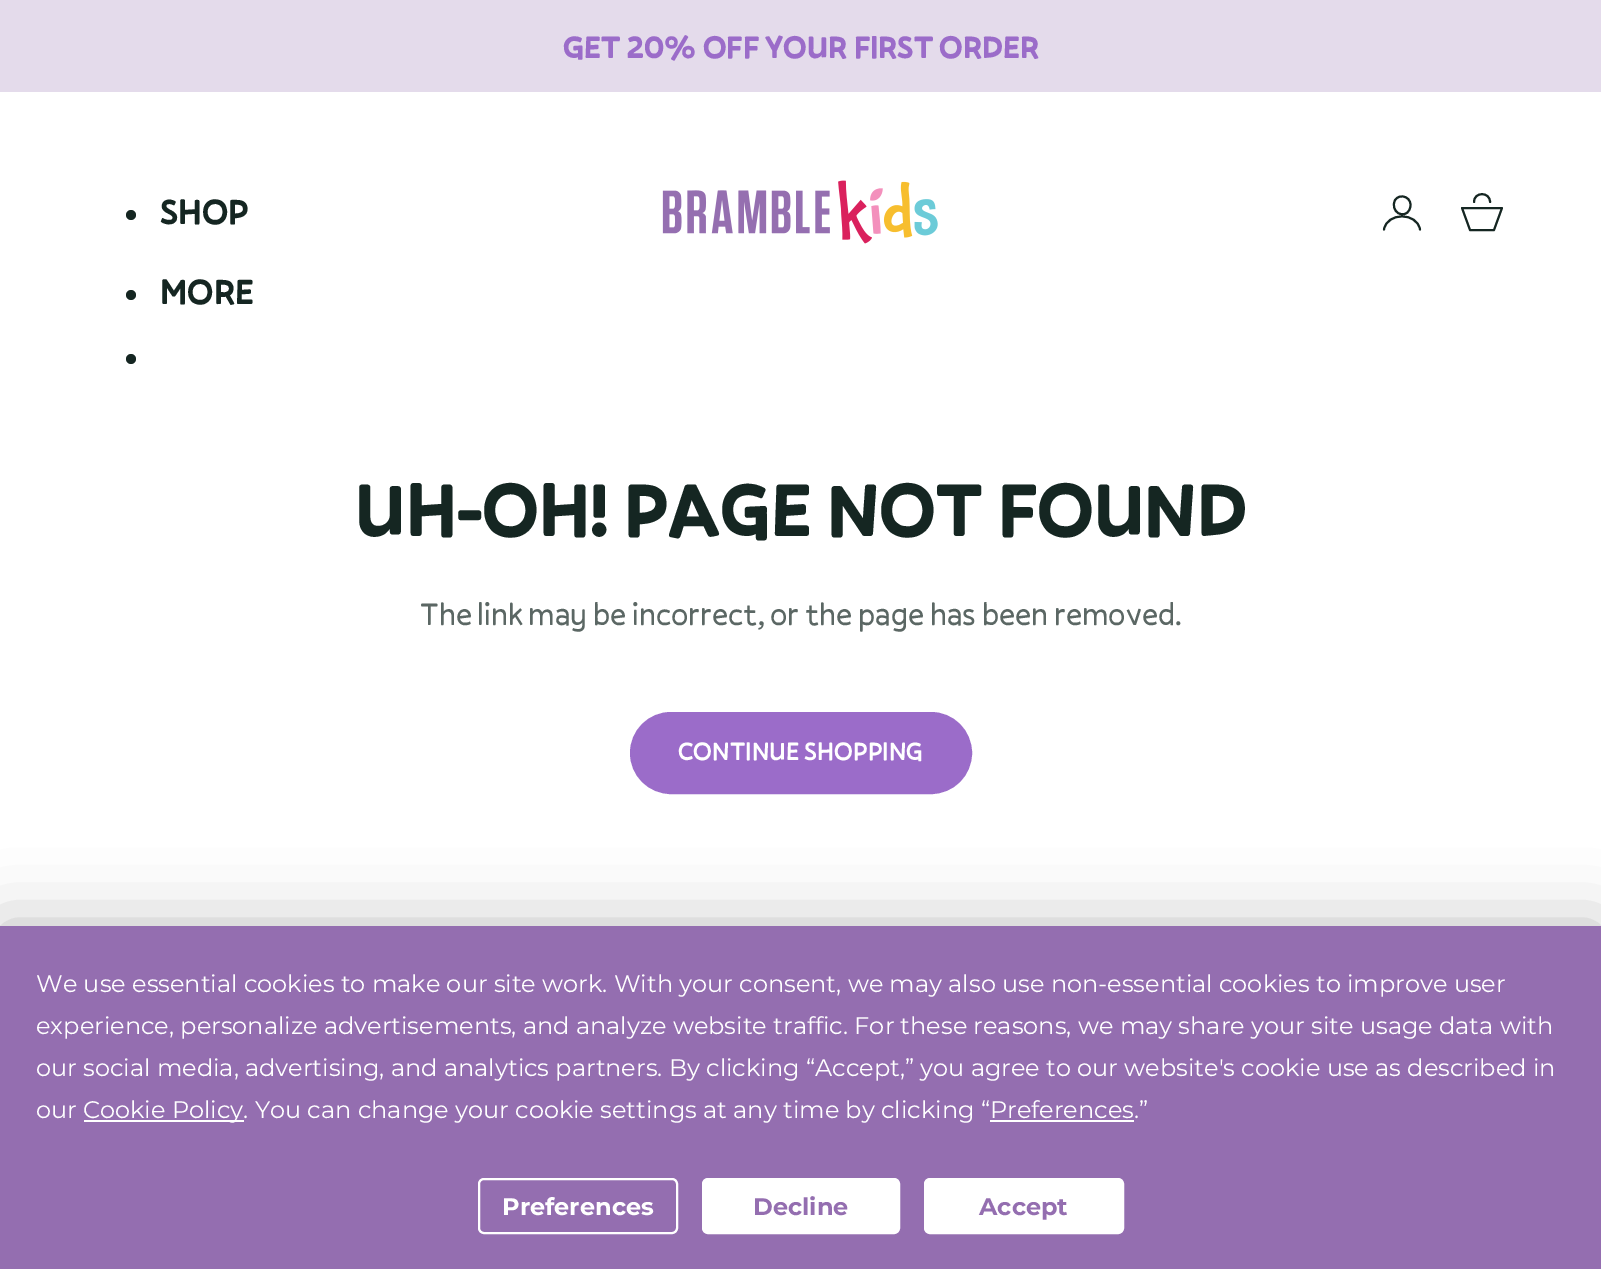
%!PS-Adobe-3.0
%%BoundingBox: 0 0 1601 1269
%%LanguageLevel: 3
%%Pages: 1
%%EndComments
%%BeginProlog
/setalpha { dup .setfillconstantalpha .setstrokeconstantalpha } def
/rrect { 5 dict begin { /r /h /w /y /x } { exch def } forall
  x r add y moveto x w add y 2 copy h add r arct x w add y h add x 1 index r arct
  x y h add x y r arct x y 2 copy exch w add exch r arct closepath end } def
/softshadow { 12 dict begin { /a /b /q /h /w /y /x } { exch def } forall gsave /was 0 def
  9 -2 -9 { dup b mul 4 div /e exch def 1 sub .425 mul 2.718 exch exp 1 add a .99 .min exch div /now exch def
    1 1 now sub 1 was sub div sub setalpha /was now def
    w h .min e 2 mul add 0 gt { x e sub y e sub w e 2 mul add h e 2 mul add
      q e add b .6 mul add w h .min 2 div e add .min 0 .max rrect fill } if } for grestore end } def
/drawimage { 5 dict begin { /h /w /y /x /name } { exch def } forall
  gsave x y translate w h scale
  w h 8 [w 0 0 h 0 0] name (r) file false 3 colorimage grestore end } def
%%EndProlog
%%BeginSetup
<< /PageSize [1601 1269] /PageUsesTransparency true >> setpagedevice
%%EndSetup
%%Page: 1 1
0 .pushpdf14devicefilter
0 1269 translate 1 -1 scale
4 setmiterlimit
1 setgray
0 0 1601 1269 rectfill
0.894 0.859 0.922 setrgbcolor
0 0 1601 92 rectfill
0.082 0.149 0.133 setrgbcolor
newpath 131 215 5 0 360 arc closepath fill
newpath 131 295 5 0 360 arc closepath fill
newpath 131 359 5 0 360 arc closepath fill
(images/1.raw) 662 180 276 64 drawimage
2 setlinewidth
1 setlinecap
1 setlinejoin
newpath 1410.5 205.5 moveto 1409.5 219 1392.5 216 1394 203.5 curveto 1395 193 1411 194.5 1410.5 205.5 curveto closepath 1384 229.5 moveto 1387 212 1417 212 1420 229.5 curveto stroke
newpath 1490 202 moveto 1490 191.5 1474 191.5 1474 202 curveto 1462 208 moveto 1502 208 lineto 1494 230 lineto 1470 230 lineto closepath stroke
0.608 0.424 0.788 setrgbcolor
631 713 340 80 40 rrect gsave fill grestore
0 setlinecap
0 setlinejoin
stroke
0 setgray
0 926 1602 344 0 35 0.25 softshadow
0.58 0.431 0.69 setrgbcolor
0 926 1601 343 rectfill
1 setgray
84 1120 160 2 rectfill
990 1120 144 2 rectfill
479 1179 198 54 5 rrect stroke
703 1179 196 54 5 rrect gsave fill grestore
stroke
925 1179 198 54 5 rrect gsave fill grestore
stroke
/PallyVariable-Bold [32 0 0 -32 0 0] selectfont
0.608 0.424 0.788 setrgbcolor
563 58 moveto (GET 20% OFF YOUR FIRST ORDER) show
/PallyVariable-SemiBold [36 0 0 -36 0 0] selectfont
0.082 0.149 0.133 setrgbcolor
160 224 moveto (SHOP) show
160 304 moveto (MORE) show
/PallyVariable-Bold [76.9 0 0 -76.9 0 0] selectfont
355 536 moveto (UH-OH! PAGE NOT FOUND) show
/PallyVariable-Regular [32 0 0 -32 0 0] selectfont
0.357 0.404 0.392 setrgbcolor
420 625 moveto (The link may be incorrect, or the page has been removed.) show
/PallyVariable-Medium [26 0 0 -26 0 0] selectfont
1 setgray
678 760 moveto (CONTINUE SHOPPING) show
/Montserrat-Regular [24 0 0 -24 0 0] selectfont
36 992 moveto (We use essential cookies to make our site work. With your consent, we may also use non-essential cookies to improve user) show
36 1034 moveto (experience, personalize advertisements, and analyze website traffic. For these reasons, we may share your site usage data with) show
36 1076 moveto (our social media, advertising, and analytics partners. By clicking “Accept,” you agree to our website's cookie use as described in) show
36 1118 moveto (our) show
83 1118 moveto (Cookie Policy. You can change your cookie settings at any time by clicking “Preferences.”) show
/Montserrat-Bold [24 0 0 -24 0 0] selectfont
502 1215 moveto (Preferences) show
0.58 0.431 0.69 setrgbcolor
753 1215 moveto (Decline) show
979 1215 moveto (Accept) show
.poppdf14devicefilter showpage
%%EOF
